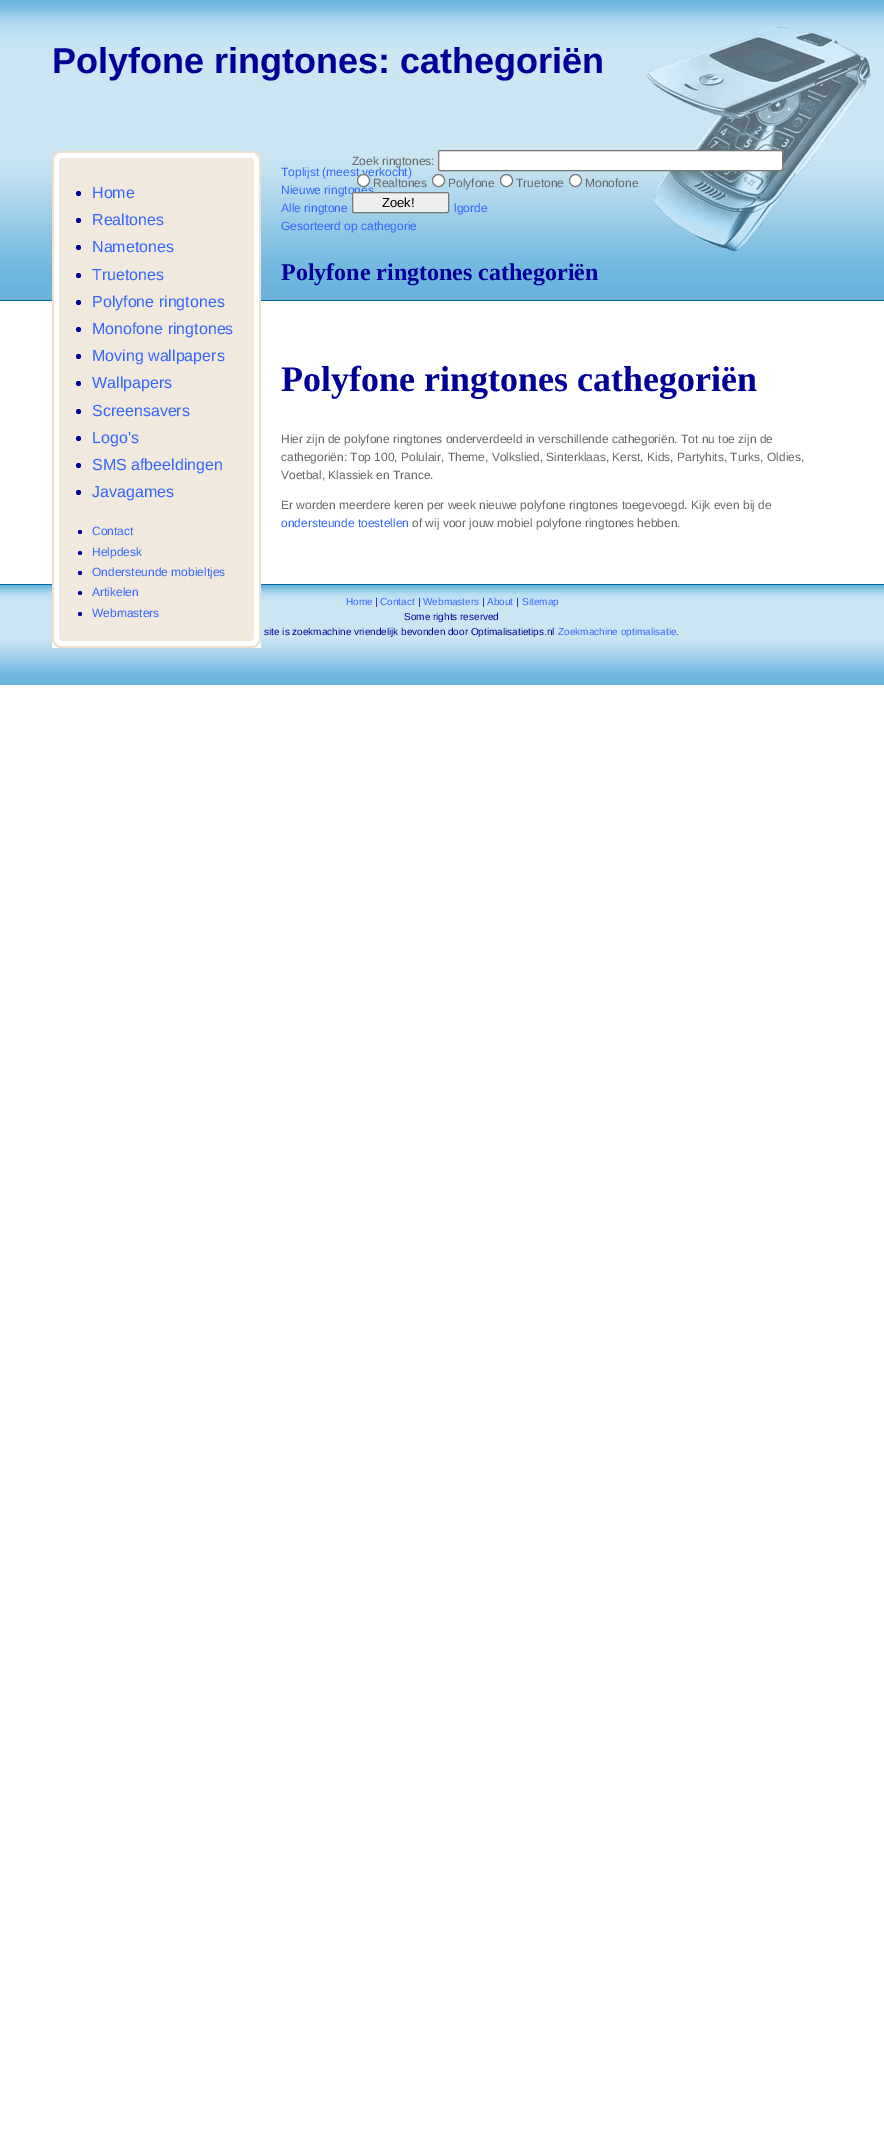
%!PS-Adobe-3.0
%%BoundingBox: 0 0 884 2151
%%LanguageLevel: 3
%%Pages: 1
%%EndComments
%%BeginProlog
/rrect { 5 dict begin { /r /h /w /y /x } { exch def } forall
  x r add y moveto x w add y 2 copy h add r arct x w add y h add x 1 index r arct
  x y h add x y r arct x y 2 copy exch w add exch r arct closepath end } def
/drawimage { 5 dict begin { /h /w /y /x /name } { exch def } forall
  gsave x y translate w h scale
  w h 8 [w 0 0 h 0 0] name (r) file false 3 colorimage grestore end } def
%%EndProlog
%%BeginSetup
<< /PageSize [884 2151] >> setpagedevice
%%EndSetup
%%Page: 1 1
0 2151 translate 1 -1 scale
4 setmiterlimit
1 setgray
0 0 884 2151 rectfill
(images/1.raw) 0 0 884 301 drawimage
(images/2.raw) 646 26 225 226 drawimage
438.5 150.5 344 20 1.5 rrect gsave fill grestore
0.463 setgray
stroke
1 setgray
newpath 438.5 180.5 6 0 360 arc closepath gsave fill grestore
0.463 setgray
stroke
1 setgray
newpath 506.5 180.5 6 0 360 arc closepath gsave fill grestore
0.463 setgray
stroke
1 setgray
newpath 575.5 180.5 6 0 360 arc closepath gsave fill grestore
0.463 setgray
stroke
(images/6.raw) 0 584 884 101 drawimage
(images/3.raw) 52 160 209 478 drawimage
(images/4.raw) 52 151 209 9 drawimage
0 0 0.6 setrgbcolor
newpath 78.5 193.5 2.5 0 360 arc closepath fill
newpath 78.5 220.5 2.5 0 360 arc closepath fill
newpath 78.5 247.5 2.5 0 360 arc closepath fill
newpath 78.5 275.5 2.5 0 360 arc closepath fill
newpath 78.5 302.5 2.5 0 360 arc closepath fill
newpath 78.5 329.5 2.5 0 360 arc closepath fill
newpath 78.5 356.5 2.5 0 360 arc closepath fill
newpath 78.5 383.5 2.5 0 360 arc closepath fill
newpath 78.5 411.5 2.5 0 360 arc closepath fill
newpath 78.5 438.5 2.5 0 360 arc closepath fill
newpath 78.5 465.5 2.5 0 360 arc closepath fill
newpath 78.5 492.5 2.5 0 360 arc closepath fill
newpath 80 532 2 0 360 arc closepath fill
newpath 80 553 2 0 360 arc closepath fill
newpath 80 573 2 0 360 arc closepath fill
newpath 80 593 2 0 360 arc closepath fill
newpath 80 614 2 0 360 arc closepath fill
(images/5.raw) 52 638 209 10 drawimage
/LiberationSans-Bold [36 0 0 -36 0 0] selectfont
52 73 moveto (Polyfone ringtones: cathegoriën) show
/LiberationSans-Regular [12 0 0 -12 0 0] selectfont
0.4 setgray
352 165 moveto (Zoek ringtones:) show
373 187 moveto (Realtones) show
448 187 moveto (Polyfone) show
516 187 moveto (Truetone) show
585 187 moveto (Monofone) show
/LiberationSans-Regular [16 0 0 -16 0 0] selectfont
0.2 0.4 1 setrgbcolor
92 198 moveto (Home) show
92 225 moveto (Realtones) show
92 252 moveto (Nametones) show
92 280 moveto (Truetones) show
92 307 moveto (Polyfone ringtones) show
92 334 moveto (Monofone ringtones) show
92 361 moveto (Moving wallpapers) show
92 388 moveto (Wallpapers) show
92 416 moveto (Screensavers) show
92 443 moveto (Logo's) show
92 470 moveto (SMS afbeeldingen) show
92 497 moveto (Javagames) show
/LiberationSans-Regular [12 0 0 -12 0 0] selectfont
92 535 moveto (Contact) show
92 556 moveto (Helpdesk) show
92 576 moveto (Ondersteunde mobieltjes) show
92 596 moveto (Artikelen) show
92 617 moveto (Webmasters) show
281 176 moveto (Toplijst \(meest verkocht\)) show
281 194 moveto (Nieuwe ringtones) show
0.937 setgray
352.5 192.5 96 20 1.5 rrect gsave fill grestore
0.463 setgray
stroke
/LiberationSans-Regular [13 0 0 -13 0 0] selectfont
0 setgray
382 207 moveto (Zoek!) show
1 setgray
newpath 363.5 180.5 6 0 360 arc closepath gsave fill grestore
0.463 setgray
stroke
/LiberationSans-Regular [12 0 0 -12 0 0] selectfont
0.2 0.4 1 setrgbcolor
281 212 moveto (Alle ringtone) show
454 212 moveto (lgorde) show
281 230 moveto (Gesorteerd op cathegorie) show
/LiberationSerif-Bold [24 0 0 -24 0 0] selectfont
0 0 0.6 setrgbcolor
281 280 moveto (Polyfone ringtones cathegoriën) show
/LiberationSerif-Bold [36 0 0 -36 0 0] selectfont
281 391 moveto (Polyfone ringtones cathegoriën) show
/LiberationSans-Regular [12 0 0 -12 0 0] selectfont
0.4 setgray
281 443 moveto (Hier zijn de polyfone ringtones onderverdeeld in verschillende cathegoriën. Tot nu toe zijn de) show
281 461 moveto (cathegoriën: Top 100, Polulair, Theme, Volkslied, Sinterklaas, Kerst, Kids, Partyhits, Turks, Oldies,) show
281 479 moveto (Voetbal, Klassiek en Trance.) show
281 509 moveto (Er worden meerdere keren per week nieuwe polyfone ringtones toegevoegd. Kijk even bij de) show
0.2 0.4 1 setrgbcolor
281 527 moveto (ondersteunde toestellen) show
0.4 setgray
412 527 moveto (of wij voor jouw mobiel polyfone ringtones hebben.) show
/LiberationSans-Regular [10 0 0 -10 0 0] selectfont
0.2 0.4 1 setrgbcolor
346 605 moveto (Home) show
0 0 0.6 setrgbcolor
375 605 moveto (|) show
0.2 0.4 1 setrgbcolor
380 605 moveto (Contact) show
0 0 0.6 setrgbcolor
418 605 moveto (|) show
0.2 0.4 1 setrgbcolor
423 605 moveto (Webmasters) show
0 0 0.6 setrgbcolor
482 605 moveto (|) show
0.2 0.4 1 setrgbcolor
487 605 moveto (About) show
0 0 0.6 setrgbcolor
516 605 moveto (|) show
0.2 0.4 1 setrgbcolor
522 605 moveto (Sitemap) show
0 0 0.6 setrgbcolor
404 620 moveto (Some rights reserved) show
264 635 moveto (site is zoekmachine vriendelijk bevonden door Optimalisatietips.nl) show
0.2 0.4 1 setrgbcolor
558 635 moveto (Zoekmachine optimalisatie) show
0 0 0.6 setrgbcolor
676 635 moveto (.) show
showpage
%%EOF
